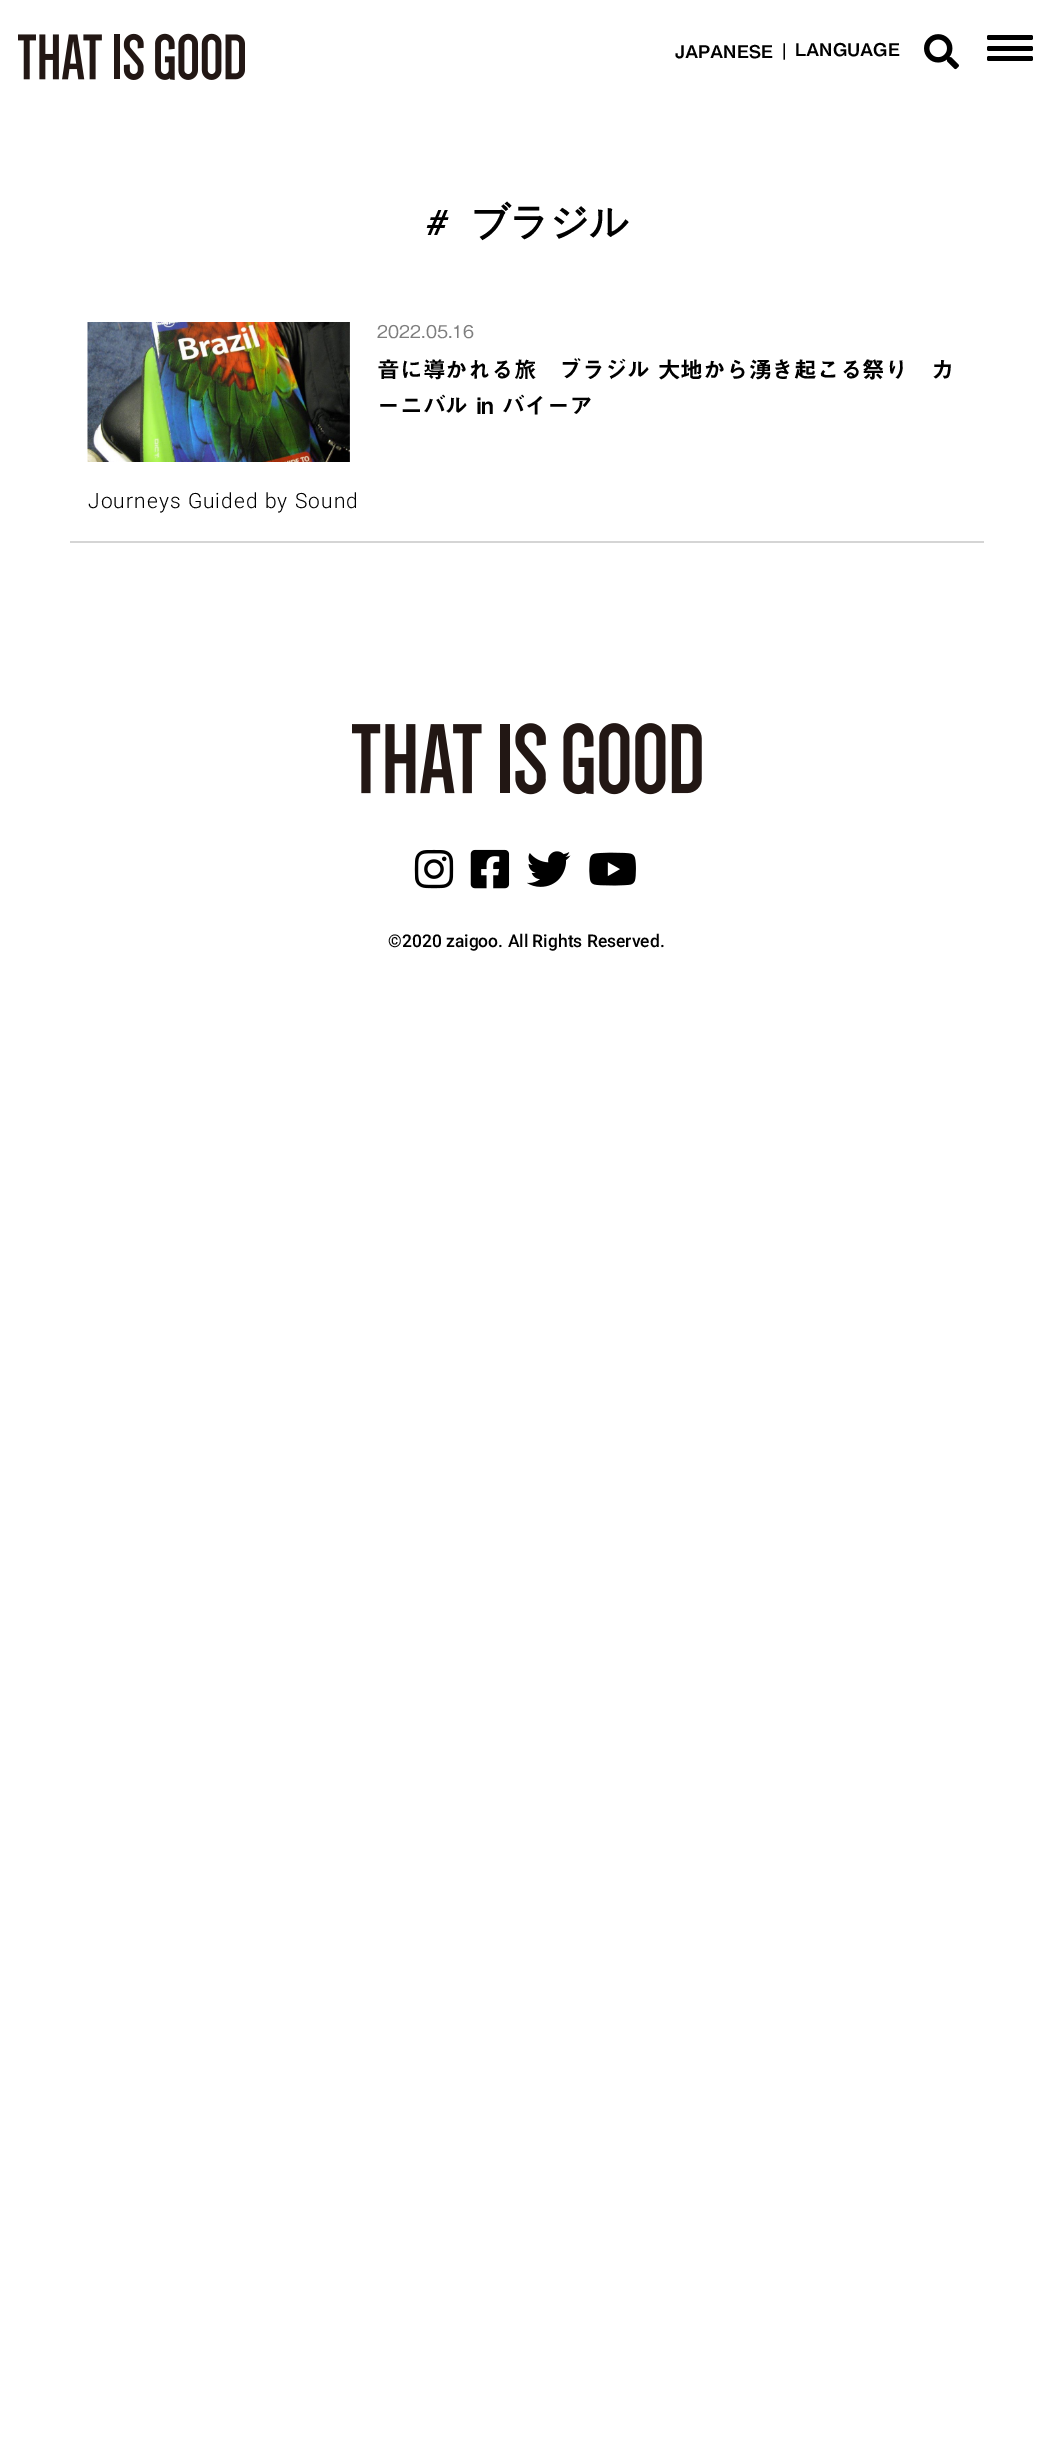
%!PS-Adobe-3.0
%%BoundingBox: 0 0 1051 2445
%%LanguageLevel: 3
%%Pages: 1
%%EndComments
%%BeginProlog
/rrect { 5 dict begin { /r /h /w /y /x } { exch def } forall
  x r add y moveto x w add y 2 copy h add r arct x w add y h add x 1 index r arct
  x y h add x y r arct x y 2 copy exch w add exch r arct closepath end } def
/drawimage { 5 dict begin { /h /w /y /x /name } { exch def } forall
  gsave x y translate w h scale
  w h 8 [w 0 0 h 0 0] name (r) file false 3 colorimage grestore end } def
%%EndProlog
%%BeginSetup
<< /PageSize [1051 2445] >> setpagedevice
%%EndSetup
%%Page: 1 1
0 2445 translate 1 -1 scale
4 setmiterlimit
1 setgray
0 0 1051 2445 rectfill
(images/1.raw) 18 33 227 47 drawimage
(images/2.raw) 924 34 35 36 drawimage
0 setgray
987 35 46 5 2 rrect fill
987 46 46 5 2 rrect fill
987 56 46 5 2 rrect fill
0.835 setgray
68 541 916 2 rectfill
1 setgray
68 541 2 2 rectfill
(images/3.raw) 87 322 263 140 drawimage
(images/4.raw) 352 723 350 72 drawimage
(images/5.raw) 414 849 40 40 drawimage
(images/6.raw) 470 849 40 40 drawimage
(images/7.raw) 527 851 44 36 drawimage
(images/8.raw) 589 852 47 34 drawimage
/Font-SemiBold [17.5 0 0 -17.5 0 0] selectfont
0 setgray
675 58 moveto (JAPANESE) show
/LiberationSans-Regular [17.5 0 0 -17.5 0 0] selectfont
782 56 moveto (|) show
/Font-SemiBold [17.5 0 0 -17.5 0 0] selectfont
795 56 moveto (LANGUAGE) show
/Roboto-BoldItalic [35 0 0 -35 0 0] selectfont
424 235 moveto (#) show
/WenQuanYiZenHei-Bold [38.5 0 0 -38.5 0 0] selectfont
471 235 moveto (ブラジル) show
/Font-Regular [17.5 0 0 -17.5 0 0] selectfont
0.494 setgray
377 338 moveto (2022.05.16) show
/Font-SemiBold [22.75 0 0 -22.75 0 0] selectfont
0 setgray
377 378 moveto (音に導かれる旅　ブラジル 大地から湧き起こる祭り　カ) show
377 414 moveto (ーニバル in バイーア) show
/Roboto-Light [21 0 0 -21 0 0] selectfont
88 508 moveto 1.05 0 (Journeys Guided by Sound) ashow
/Roboto-Medium [17.5 0 0 -17.5 0 0] selectfont
388 947 moveto (©2020 zaigoo. All Rights Reserved.) show
showpage
%%EOF
